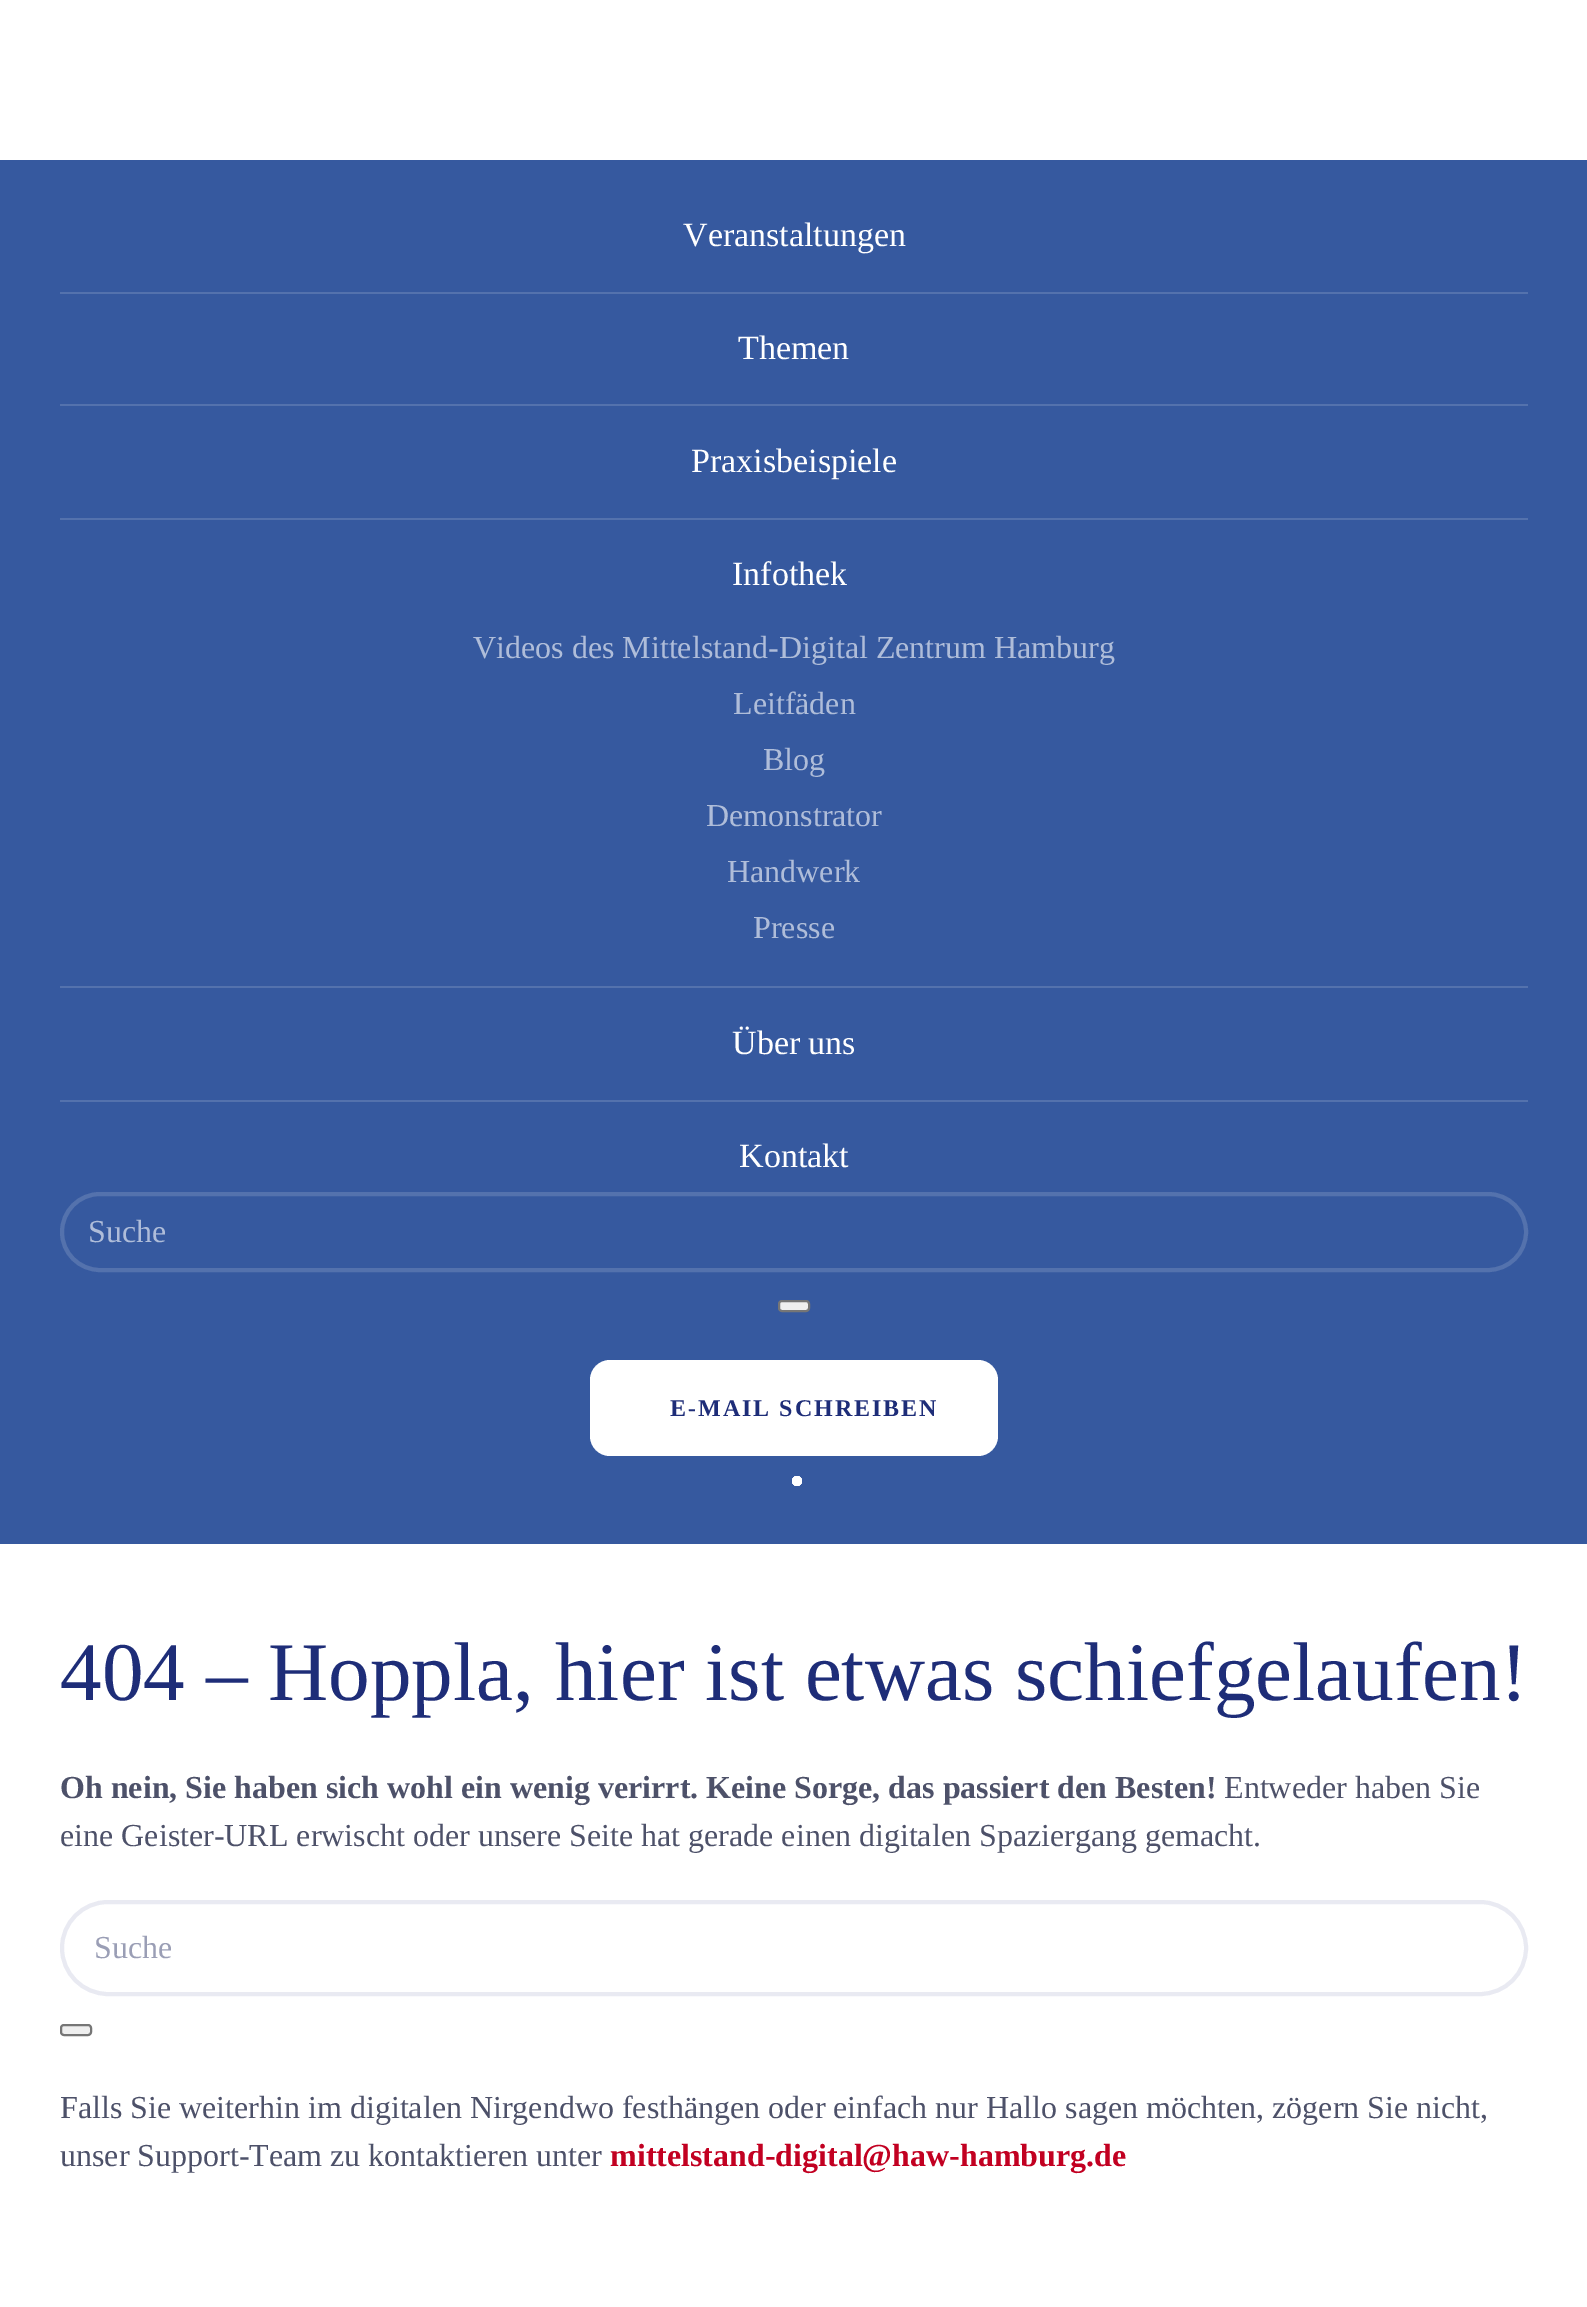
%!PS-Adobe-3.0
%%BoundingBox: 0 0 1587 2307
%%LanguageLevel: 3
%%Pages: 1
%%EndComments
%%BeginProlog
/setalpha { dup .setfillconstantalpha .setstrokeconstantalpha } def
/rrect { 5 dict begin { /r /h /w /y /x } { exch def } forall
  x r add y moveto x w add y 2 copy h add r arct x w add y h add x 1 index r arct
  x y h add x y r arct x y 2 copy exch w add exch r arct closepath end } def
%%EndProlog
%%BeginSetup
<< /PageSize [1587 2307] /PageUsesTransparency true >> setpagedevice
%%EndSetup
%%Page: 1 1
0 .pushpdf14devicefilter
0 2307 translate 1 -1 scale
4 setmiterlimit
1 setgray
0 0 1587 2307 rectfill
0.212 0.349 0.624 setrgbcolor
0 160 1587 1384 rectfill
0.329 0.447 0.678 setrgbcolor
60 292 1468 2 rectfill
60 404 1468 2 rectfill
60 518 1468 2 rectfill
60 986 1468 2 rectfill
60 1100 1468 2 rectfill
4 setlinewidth
62 1194 1464 76 38 rrect stroke
0.937 setgray
779 1301 30 10 3 rrect gsave fill grestore
0.463 setgray
2 setlinewidth
stroke
1 setgray
590 1360 408 96 20 rrect fill
0.843 0.871 0.925 setrgbcolor
newpath 797 1481 5 0 360 arc closepath fill
0.8 setalpha
1 setgray
newpath 797 1481 5 0 360 arc closepath fill
newpath 797 1481 5 0 360 arc closepath fill
newpath 797 1481 5 0 360 arc closepath fill
newpath 797 1481 5 0 360 arc closepath fill
1 setalpha
0.914 0.918 0.949 setrgbcolor
4 setlinewidth
62 1902 1464 92 46 rrect stroke
0.937 setgray
61 2025 30 10 3 rrect gsave fill grestore
0.463 setgray
2 setlinewidth
stroke
/LiberationSerif-Regular [34 0 0 -34 0 0] selectfont
1 setgray
683 246 moveto (Veranstaltungen) show
738 359 moveto (Themen) show
691 472 moveto (Praxisbeispiele) show
732 585 moveto (Infothek) show
/LiberationSerif-Regular [32 0 0 -32 0 0] selectfont
0.686 0.741 0.851 setrgbcolor
473 658 moveto (Videos des Mittelstand-Digital Zentrum Hamburg) show
733 714 moveto (Leitfäden) show
763 770 moveto (Blog) show
706 826 moveto (Demonstrator) show
727 882 moveto (Handwerk) show
753 938 moveto (Presse) show
/LiberationSerif-Regular [34 0 0 -34 0 0] selectfont
1 setgray
732 1054 moveto (Über uns) show
739 1167 moveto (Kontakt) show
/LiberationSerif-Regular [32 0 0 -32 0 0] selectfont
0.686 0.741 0.851 setrgbcolor
88 1242 moveto (Suche) show
/LiberationSerif-Bold [24 0 0 -24 0 0] selectfont
0.118 0.176 0.471 setrgbcolor
670 1416 moveto 2 0 (E-MAIL SCHREIBEN) ashow
/LiberationSerif-Regular [83.25 0 0 -83.25 0 0] selectfont
60 1700 moveto (404 – Hoppla, hier ist etwas schiefgelaufen!) show
/LiberationSerif-Bold [32 0 0 -32 0 0] selectfont
0.302 0.318 0.412 setrgbcolor
60 1798 moveto (Oh nein, Sie haben sich wohl ein wenig verirrt. Keine Sorge, das passiert den Besten!) show
/LiberationSerif-Regular [32 0 0 -32 0 0] selectfont
1224 1798 moveto (Entweder haben Sie) show
60 1846 moveto (eine Geister-URL erwischt oder unsere Seite hat gerade einen digitalen Spaziergang gemacht.) show
0.604 0.62 0.71 setrgbcolor
94 1958 moveto (Suche) show
0.302 0.318 0.412 setrgbcolor
60 2118 moveto (Falls Sie weiterhin im digitalen Nirgendwo festhängen oder einfach nur Hallo sagen möchten, zögern Sie nicht,) show
60 2166 moveto (unser Support-Team zu kontaktieren unter) show
/LiberationSerif-Bold [32 0 0 -32 0 0] selectfont
0.761 0 0.129 setrgbcolor
610 2166 moveto (mittelstand-digital@haw-hamburg.de) show
.poppdf14devicefilter showpage
%%EOF
